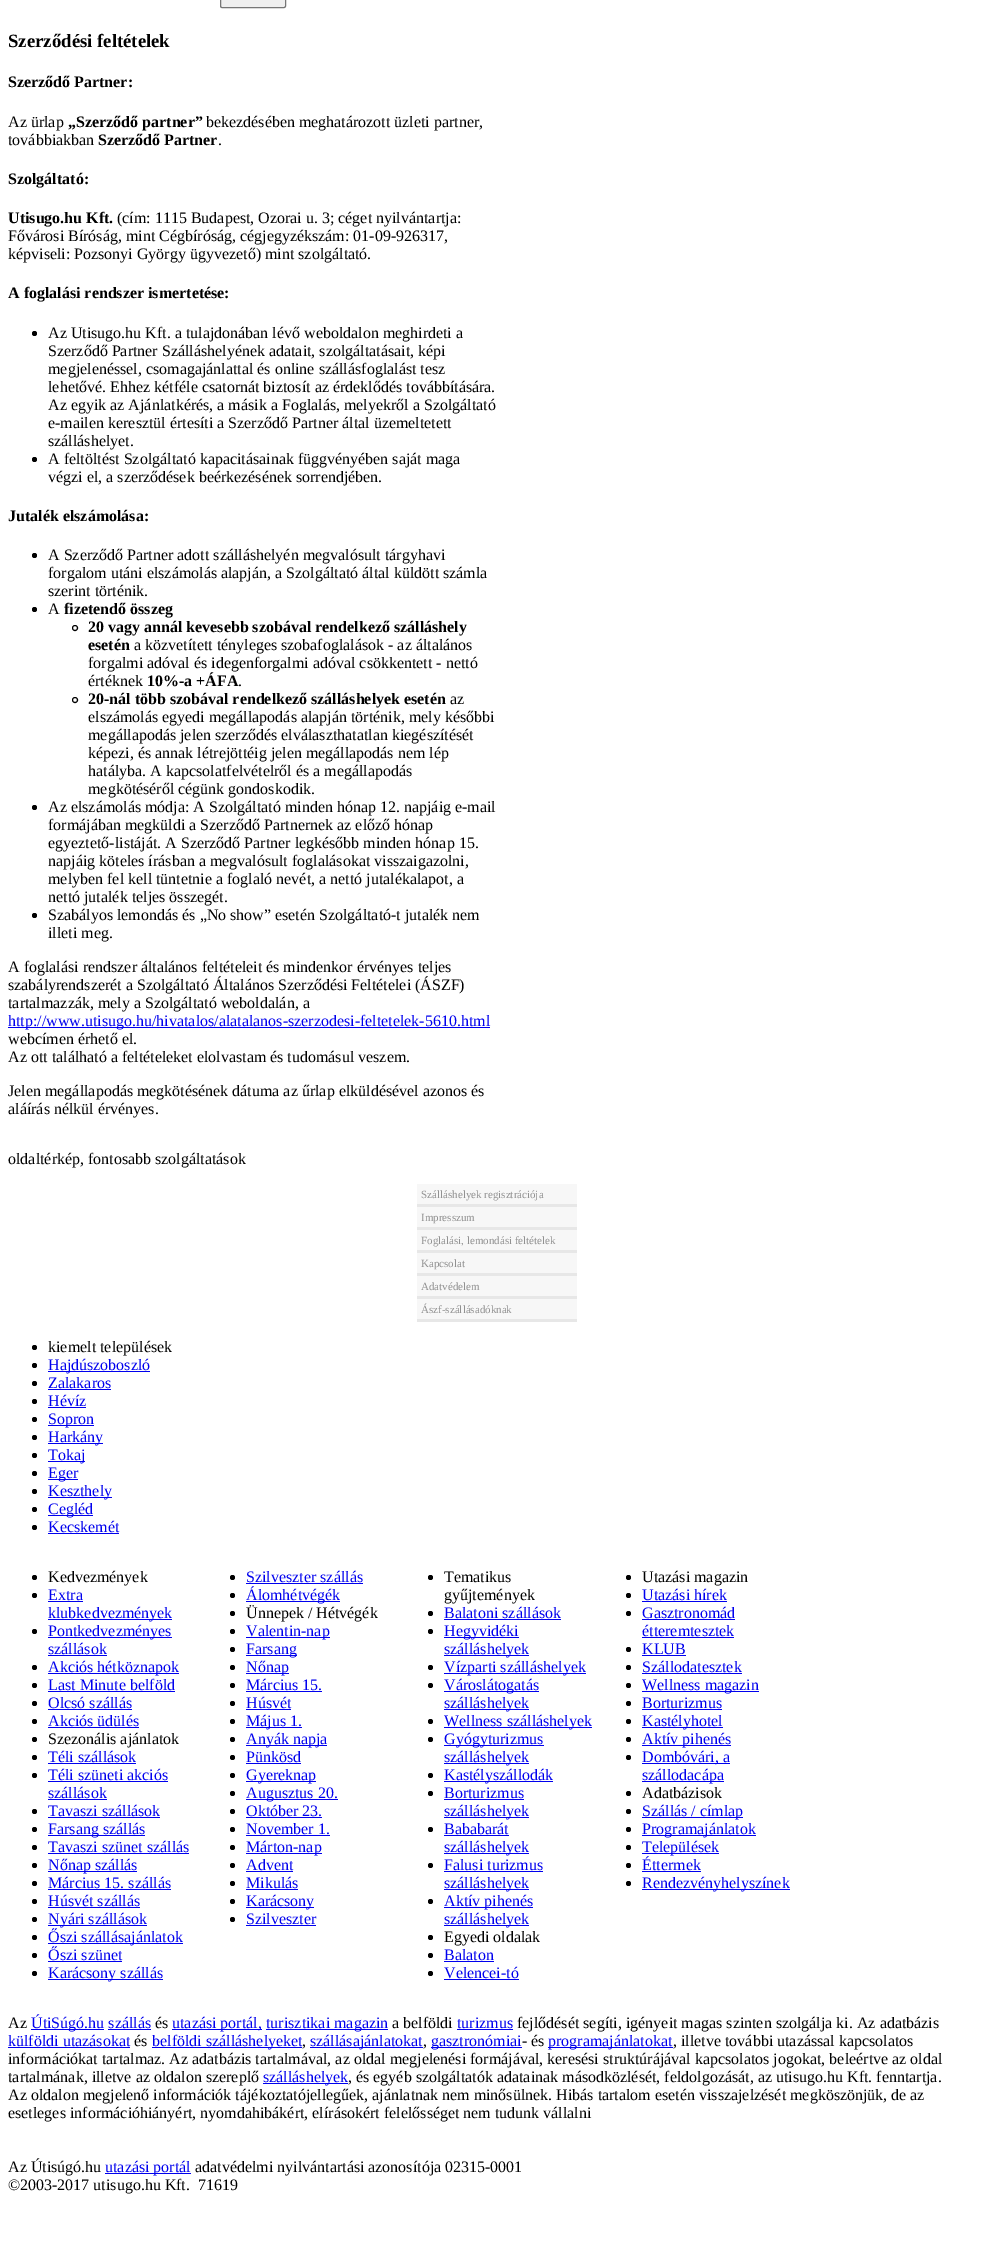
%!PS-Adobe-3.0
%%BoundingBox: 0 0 993 2252
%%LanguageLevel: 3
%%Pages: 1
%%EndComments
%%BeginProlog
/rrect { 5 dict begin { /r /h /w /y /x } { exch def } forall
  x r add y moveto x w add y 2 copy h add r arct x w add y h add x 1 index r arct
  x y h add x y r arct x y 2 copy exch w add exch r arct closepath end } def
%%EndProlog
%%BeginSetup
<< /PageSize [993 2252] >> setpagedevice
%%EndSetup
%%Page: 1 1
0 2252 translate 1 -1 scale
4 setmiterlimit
1 setgray
0 0 993 2252 rectfill
0.937 setgray
220.5 -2.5 65 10 1.5 rrect gsave fill grestore
0.463 setgray
stroke
0 setgray
newpath 34.5 333.5 2.5 0 360 arc closepath fill
newpath 34.5 459.5 2.5 0 360 arc closepath fill
newpath 34.5 555.5 2.5 0 360 arc closepath fill
newpath 34.5 609.5 2.5 0 360 arc closepath fill
newpath 75 628 2.5 0 360 arc closepath stroke
newpath 75 700 2.5 0 360 arc closepath stroke
newpath 34.5 807.5 2.5 0 360 arc closepath fill
newpath 34.5 915.5 2.5 0 360 arc closepath fill
0 0 0.933 setrgbcolor
8 1027 482 1 rectfill
0.969 setgray
417 1184 160 20 rectfill
0.906 setgray
417 1204 160 3 rectfill
0.969 setgray
417 1207 160 20 rectfill
0.906 setgray
417 1227 160 3 rectfill
0.969 setgray
417 1230 160 20 rectfill
0.906 setgray
417 1250 160 3 rectfill
0.969 setgray
417 1253 160 20 rectfill
0.906 setgray
417 1273 160 3 rectfill
0.969 setgray
417 1276 160 20 rectfill
0.906 setgray
417 1296 160 3 rectfill
0.969 setgray
417 1299 160 20 rectfill
0.906 setgray
417 1319 160 3 rectfill
0 setgray
newpath 34.5 1347.5 2.5 0 360 arc closepath fill
newpath 34.5 1365.5 2.5 0 360 arc closepath fill
0 0 0.933 setrgbcolor
48 1371 102 1 rectfill
0 setgray
newpath 34.5 1383.5 2.5 0 360 arc closepath fill
0 0 0.933 setrgbcolor
48 1389 63 1 rectfill
0 setgray
newpath 34.5 1401.5 2.5 0 360 arc closepath fill
0 0 0.933 setrgbcolor
48 1407 38 1 rectfill
0 setgray
newpath 34.5 1419.5 2.5 0 360 arc closepath fill
0 0 0.933 setrgbcolor
48 1425 46 1 rectfill
0 setgray
newpath 34.5 1437.5 2.5 0 360 arc closepath fill
0 0 0.933 setrgbcolor
48 1443 55 1 rectfill
0 setgray
newpath 34.5 1455.5 2.5 0 360 arc closepath fill
0 0 0.933 setrgbcolor
48 1461 37 1 rectfill
0 setgray
newpath 34.5 1473.5 2.5 0 360 arc closepath fill
0 0 0.933 setrgbcolor
48 1479 30 1 rectfill
0 setgray
newpath 34.5 1491.5 2.5 0 360 arc closepath fill
0 0 0.933 setrgbcolor
48 1497 64 1 rectfill
0 setgray
newpath 34.5 1509.5 2.5 0 360 arc closepath fill
0 0 0.933 setrgbcolor
48 1515 45 1 rectfill
0 setgray
newpath 34.5 1527.5 2.5 0 360 arc closepath fill
0 0 0.933 setrgbcolor
48 1533 71 1 rectfill
0 setgray
newpath 34.5 1577.5 2.5 0 360 arc closepath fill
newpath 34.5 1595.5 2.5 0 360 arc closepath fill
0 0 0.933 setrgbcolor
48 1601 35 1 rectfill
48 1619 124 1 rectfill
0 setgray
newpath 34.5 1631.5 2.5 0 360 arc closepath fill
0 0 0.933 setrgbcolor
48 1637 124 1 rectfill
48 1655 59 1 rectfill
0 setgray
newpath 34.5 1667.5 2.5 0 360 arc closepath fill
0 0 0.933 setrgbcolor
48 1673 131 1 rectfill
0 setgray
newpath 34.5 1685.5 2.5 0 360 arc closepath fill
0 0 0.933 setrgbcolor
48 1691 127 1 rectfill
0 setgray
newpath 34.5 1703.5 2.5 0 360 arc closepath fill
0 0 0.933 setrgbcolor
48 1709 84 1 rectfill
0 setgray
newpath 34.5 1721.5 2.5 0 360 arc closepath fill
0 0 0.933 setrgbcolor
48 1727 91 1 rectfill
0 setgray
newpath 34.5 1739.5 2.5 0 360 arc closepath fill
newpath 34.5 1757.5 2.5 0 360 arc closepath fill
0 0 0.933 setrgbcolor
48 1763 88 1 rectfill
0 setgray
newpath 34.5 1775.5 2.5 0 360 arc closepath fill
0 0 0.933 setrgbcolor
48 1781 120 1 rectfill
48 1799 59 1 rectfill
0 setgray
newpath 34.5 1811.5 2.5 0 360 arc closepath fill
0 0 0.933 setrgbcolor
48 1817 112 1 rectfill
0 setgray
newpath 34.5 1829.5 2.5 0 360 arc closepath fill
0 0 0.933 setrgbcolor
48 1835 97 1 rectfill
0 setgray
newpath 34.5 1847.5 2.5 0 360 arc closepath fill
0 0 0.933 setrgbcolor
48 1853 141 1 rectfill
0 setgray
newpath 34.5 1865.5 2.5 0 360 arc closepath fill
0 0 0.933 setrgbcolor
48 1871 89 1 rectfill
0 setgray
newpath 34.5 1883.5 2.5 0 360 arc closepath fill
0 0 0.933 setrgbcolor
48 1889 123 1 rectfill
0 setgray
newpath 34.5 1901.5 2.5 0 360 arc closepath fill
0 0 0.933 setrgbcolor
48 1907 92 1 rectfill
0 setgray
newpath 34.5 1919.5 2.5 0 360 arc closepath fill
0 0 0.933 setrgbcolor
48 1925 99 1 rectfill
0 setgray
newpath 34.5 1937.5 2.5 0 360 arc closepath fill
0 0 0.933 setrgbcolor
48 1943 135 1 rectfill
0 setgray
newpath 34.5 1955.5 2.5 0 360 arc closepath fill
0 0 0.933 setrgbcolor
48 1961 74 1 rectfill
0 setgray
newpath 34.5 1973.5 2.5 0 360 arc closepath fill
0 0 0.933 setrgbcolor
48 1979 115 1 rectfill
0 setgray
newpath 232.5 1577.5 2.5 0 360 arc closepath fill
0 0 0.933 setrgbcolor
246 1583 117 1 rectfill
0 setgray
newpath 232.5 1595.5 2.5 0 360 arc closepath fill
0 0 0.933 setrgbcolor
246 1601 94 1 rectfill
0 setgray
newpath 232.5 1613.5 2.5 0 360 arc closepath fill
newpath 232.5 1631.5 2.5 0 360 arc closepath fill
0 0 0.933 setrgbcolor
246 1637 84 1 rectfill
0 setgray
newpath 232.5 1649.5 2.5 0 360 arc closepath fill
0 0 0.933 setrgbcolor
246 1655 51 1 rectfill
0 setgray
newpath 232.5 1667.5 2.5 0 360 arc closepath fill
0 0 0.933 setrgbcolor
246 1673 43 1 rectfill
0 setgray
newpath 232.5 1685.5 2.5 0 360 arc closepath fill
0 0 0.933 setrgbcolor
246 1691 76 1 rectfill
0 setgray
newpath 232.5 1703.5 2.5 0 360 arc closepath fill
0 0 0.933 setrgbcolor
246 1709 45 1 rectfill
0 setgray
newpath 232.5 1721.5 2.5 0 360 arc closepath fill
0 0 0.933 setrgbcolor
246 1727 56 1 rectfill
0 setgray
newpath 232.5 1739.5 2.5 0 360 arc closepath fill
0 0 0.933 setrgbcolor
246 1745 81 1 rectfill
0 setgray
newpath 232.5 1757.5 2.5 0 360 arc closepath fill
0 0 0.933 setrgbcolor
246 1763 55 1 rectfill
0 setgray
newpath 232.5 1775.5 2.5 0 360 arc closepath fill
0 0 0.933 setrgbcolor
246 1781 70 1 rectfill
0 setgray
newpath 232.5 1793.5 2.5 0 360 arc closepath fill
0 0 0.933 setrgbcolor
246 1799 92 1 rectfill
0 setgray
newpath 232.5 1811.5 2.5 0 360 arc closepath fill
0 0 0.933 setrgbcolor
246 1817 76 1 rectfill
0 setgray
newpath 232.5 1829.5 2.5 0 360 arc closepath fill
0 0 0.933 setrgbcolor
246 1835 84 1 rectfill
0 setgray
newpath 232.5 1847.5 2.5 0 360 arc closepath fill
0 0 0.933 setrgbcolor
246 1853 76 1 rectfill
0 setgray
newpath 232.5 1865.5 2.5 0 360 arc closepath fill
0 0 0.933 setrgbcolor
246 1871 47 1 rectfill
0 setgray
newpath 232.5 1883.5 2.5 0 360 arc closepath fill
0 0 0.933 setrgbcolor
246 1889 52 1 rectfill
0 setgray
newpath 232.5 1901.5 2.5 0 360 arc closepath fill
0 0 0.933 setrgbcolor
246 1907 68 1 rectfill
0 setgray
newpath 232.5 1919.5 2.5 0 360 arc closepath fill
0 0 0.933 setrgbcolor
246 1925 70 1 rectfill
0 setgray
newpath 430.5 1577.5 2.5 0 360 arc closepath fill
newpath 430.5 1613.5 2.5 0 360 arc closepath fill
0 0 0.933 setrgbcolor
444 1619 117 1 rectfill
0 setgray
newpath 430.5 1631.5 2.5 0 360 arc closepath fill
0 0 0.933 setrgbcolor
444 1637 75 1 rectfill
444 1655 85 1 rectfill
0 setgray
newpath 430.5 1667.5 2.5 0 360 arc closepath fill
0 0 0.933 setrgbcolor
444 1673 142 1 rectfill
0 setgray
newpath 430.5 1685.5 2.5 0 360 arc closepath fill
0 0 0.933 setrgbcolor
444 1691 95 1 rectfill
444 1709 85 1 rectfill
0 setgray
newpath 430.5 1721.5 2.5 0 360 arc closepath fill
0 0 0.933 setrgbcolor
444 1727 148 1 rectfill
0 setgray
newpath 430.5 1739.5 2.5 0 360 arc closepath fill
0 0 0.933 setrgbcolor
444 1745 100 1 rectfill
444 1763 85 1 rectfill
0 setgray
newpath 430.5 1775.5 2.5 0 360 arc closepath fill
0 0 0.933 setrgbcolor
444 1781 109 1 rectfill
0 setgray
newpath 430.5 1793.5 2.5 0 360 arc closepath fill
0 0 0.933 setrgbcolor
444 1799 80 1 rectfill
444 1817 85 1 rectfill
0 setgray
newpath 430.5 1829.5 2.5 0 360 arc closepath fill
0 0 0.933 setrgbcolor
444 1835 65 1 rectfill
444 1853 85 1 rectfill
0 setgray
newpath 430.5 1865.5 2.5 0 360 arc closepath fill
0 0 0.933 setrgbcolor
444 1871 99 1 rectfill
444 1889 85 1 rectfill
0 setgray
newpath 430.5 1901.5 2.5 0 360 arc closepath fill
0 0 0.933 setrgbcolor
444 1907 89 1 rectfill
444 1925 85 1 rectfill
0 setgray
newpath 430.5 1937.5 2.5 0 360 arc closepath fill
newpath 430.5 1955.5 2.5 0 360 arc closepath fill
0 0 0.933 setrgbcolor
444 1961 50 1 rectfill
0 setgray
newpath 430.5 1973.5 2.5 0 360 arc closepath fill
0 0 0.933 setrgbcolor
444 1979 75 1 rectfill
0 setgray
newpath 628.5 1577.5 2.5 0 360 arc closepath fill
newpath 628.5 1595.5 2.5 0 360 arc closepath fill
0 0 0.933 setrgbcolor
642 1601 85 1 rectfill
0 setgray
newpath 628.5 1613.5 2.5 0 360 arc closepath fill
0 0 0.933 setrgbcolor
642 1619 93 1 rectfill
642 1637 92 1 rectfill
0 setgray
newpath 628.5 1649.5 2.5 0 360 arc closepath fill
0 0 0.933 setrgbcolor
642 1655 44 1 rectfill
0 setgray
newpath 628.5 1667.5 2.5 0 360 arc closepath fill
0 0 0.933 setrgbcolor
642 1673 100 1 rectfill
0 setgray
newpath 628.5 1685.5 2.5 0 360 arc closepath fill
0 0 0.933 setrgbcolor
642 1691 117 1 rectfill
0 setgray
newpath 628.5 1703.5 2.5 0 360 arc closepath fill
0 0 0.933 setrgbcolor
642 1709 80 1 rectfill
0 setgray
newpath 628.5 1721.5 2.5 0 360 arc closepath fill
0 0 0.933 setrgbcolor
642 1727 81 1 rectfill
0 setgray
newpath 628.5 1739.5 2.5 0 360 arc closepath fill
0 0 0.933 setrgbcolor
642 1745 89 1 rectfill
0 setgray
newpath 628.5 1757.5 2.5 0 360 arc closepath fill
0 0 0.933 setrgbcolor
642 1763 88 1 rectfill
642 1781 82 1 rectfill
0 setgray
newpath 628.5 1793.5 2.5 0 360 arc closepath fill
newpath 628.5 1811.5 2.5 0 360 arc closepath fill
0 0 0.933 setrgbcolor
642 1817 101 1 rectfill
0 setgray
newpath 628.5 1829.5 2.5 0 360 arc closepath fill
0 0 0.933 setrgbcolor
642 1835 114 1 rectfill
0 setgray
newpath 628.5 1847.5 2.5 0 360 arc closepath fill
0 0 0.933 setrgbcolor
642 1853 77 1 rectfill
0 setgray
newpath 628.5 1865.5 2.5 0 360 arc closepath fill
0 0 0.933 setrgbcolor
642 1871 59 1 rectfill
0 setgray
newpath 628.5 1883.5 2.5 0 360 arc closepath fill
0 0 0.933 setrgbcolor
642 1889 148 1 rectfill
31 2029 73 1 rectfill
172 2029 90 1 rectfill
266 2029 122 1 rectfill
457 2029 56 1 rectfill
108 2029 43 1 rectfill
8 2047 122 1 rectfill
152 2047 150 1 rectfill
310 2047 113 1 rectfill
431 2047 91 1 rectfill
548 2047 125 1 rectfill
263 2083 85 1 rectfill
105 2173 86 1 rectfill
/LiberationSerif-Bold [18.75 0 0 -18.75 0 0] selectfont
0 setgray
8 47 moveto (Szerződési feltételek) show
/LiberationSerif-Bold [16 0 0 -16 0 0] selectfont
8 87 moveto (Szerződő Partner:) show
/LiberationSerif-Regular [16 0 0 -16 0 0] selectfont
8 127 moveto (Az ürlap) show
/LiberationSerif-Bold [16 0 0 -16 0 0] selectfont
68 127 moveto („Szerződő partner”) show
/LiberationSerif-Regular [16 0 0 -16 0 0] selectfont
206 127 moveto (bekezdésében meghatározott üzleti partner,) show
8 145 moveto (továbbiakban) show
/LiberationSerif-Bold [16 0 0 -16 0 0] selectfont
98 145 moveto (Szerződő Partner) show
/LiberationSerif-Regular [16 0 0 -16 0 0] selectfont
218 145 moveto (.) show
/LiberationSerif-Bold [16 0 0 -16 0 0] selectfont
8 184 moveto (Szolgáltató:) show
8 223 moveto (Utisugo.hu Kft.) show
/LiberationSerif-Regular [16 0 0 -16 0 0] selectfont
117 223 moveto (\(cím: 1115 Budapest, Ozorai u. 3; céget nyilvántartja:) show
8 241 moveto (Fővárosi Bíróság, mint Cégbíróság, cégjegyzékszám: 01-09-926317,) show
8 259 moveto (képviseli: Pozsonyi György ügyvezető\) mint szolgáltató.) show
/LiberationSerif-Bold [16 0 0 -16 0 0] selectfont
8 298 moveto (A foglalási rendszer ismertetése:) show
/LiberationSerif-Regular [16 0 0 -16 0 0] selectfont
48 338 moveto (Az Utisugo.hu Kft. a tulajdonában lévő weboldalon meghirdeti a) show
48 356 moveto (Szerződő Partner Szálláshelyének adatait, szolgáltatásait, képi) show
48 374 moveto (megjelenéssel, csomagajánlattal és online szállásfoglalást tesz) show
48 392 moveto (lehetővé. Ehhez kétféle csatornát biztosít az érdeklődés továbbítására.) show
48 410 moveto (Az egyik az Ajánlatkérés, a másik a Foglalás, melyekről a Szolgáltató) show
48 428 moveto (e-mailen keresztül értesíti a Szerződő Partner által üzemeltetett) show
48 446 moveto (szálláshelyet.) show
48 464 moveto (A feltöltést Szolgáltató kapacitásainak függvényében saját maga) show
48 482 moveto (végzi el, a szerződések beérkezésének sorrendjében.) show
/LiberationSerif-Bold [16 0 0 -16 0 0] selectfont
8 521 moveto (Jutalék elszámolása:) show
/LiberationSerif-Regular [16 0 0 -16 0 0] selectfont
48 560 moveto (A Szerződő Partner adott szálláshelyén megvalósult tárgyhavi) show
48 578 moveto (forgalom utáni elszámolás alapján, a Szolgáltató által küldött számla) show
48 596 moveto (szerint történik.) show
48 614 moveto (A) show
/LiberationSerif-Bold [16 0 0 -16 0 0] selectfont
64 614 moveto (fizetendő összeg) show
88 632 moveto (20 vagy annál kevesebb szobával rendelkező szálláshely) show
88 650 moveto (esetén) show
/LiberationSerif-Regular [16 0 0 -16 0 0] selectfont
134 650 moveto (a közvetített tényleges szobafoglalások - az általános) show
88 668 moveto (forgalmi adóval és idegenforgalmi adóval csökkentett - nettó) show
88 686 moveto (értéknek) show
/LiberationSerif-Bold [16 0 0 -16 0 0] selectfont
147 686 moveto (10%-a +ÁFA) show
/LiberationSerif-Regular [16 0 0 -16 0 0] selectfont
238 686 moveto (.) show
/LiberationSerif-Bold [16 0 0 -16 0 0] selectfont
88 704 moveto (20-nál több szobával rendelkező szálláshelyek esetén) show
/LiberationSerif-Regular [16 0 0 -16 0 0] selectfont
450 704 moveto (az) show
88 722 moveto (elszámolás egyedi megállapodás alapján történik, mely későbbi) show
88 740 moveto (megállapodás jelen szerződés elválaszthatatlan kiegészítését) show
88 758 moveto (képezi, és annak létrejöttéig jelen megállapodás nem lép) show
88 776 moveto (hatályba. A kapcsolatfelvételről és a megállapodás) show
88 794 moveto (megkötéséről cégünk gondoskodik.) show
48 812 moveto (Az elszámolás módja: A Szolgáltató minden hónap 12. napjáig e-mail) show
48 830 moveto (formájában megküldi a Szerződő Partnernek az előző hónap) show
48 848 moveto (egyeztető-listáját. A Szerződő Partner legkésőbb minden hónap 15.) show
48 866 moveto (napjáig köteles írásban a megvalósult foglalásokat visszaigazolni,) show
48 884 moveto (melyben fel kell tüntetnie a foglaló nevét, a nettó jutalékalapot, a) show
48 902 moveto (nettó jutalék teljes összegét.) show
48 920 moveto (Szabályos lemondás és „No show” esetén Szolgáltató-t jutalék nem) show
48 938 moveto (illeti meg.) show
8 972 moveto (A foglalási rendszer általános feltételeit és mindenkor érvényes teljes) show
8 990 moveto (szabályrendszerét a Szolgáltató Általános Szerződési Feltételei \(ÁSZF\)) show
8 1008 moveto (tartalmazzák, mely a Szolgáltató weboldalán, a) show
0 0 0.933 setrgbcolor
8 1026 moveto (http://www.utisugo.hu/hivatalos/alatalanos-szerzodesi-feltetelek-5610.html) show
0 setgray
8 1044 moveto (webcímen érhető el.) show
8 1062 moveto (Az ott található a feltételeket elolvastam és tudomásul veszem.) show
8 1096 moveto (Jelen megállapodás megkötésének dátuma az űrlap elküldésével azonos és) show
8 1114 moveto (aláírás nélkül érvényes.) show
8 1164 moveto (oldaltérkép, fontosabb szolgáltatások) show
/LiberationSerif-Regular [11 0 0 -11 0 0] selectfont
0.569 setgray
421 1198 moveto (Szálláshelyek regisztrációja) show
421 1221 moveto (Impresszum) show
421 1244 moveto (Foglalási, lemondási feltételek) show
421 1267 moveto (Kapcsolat) show
421 1290 moveto (Adatvédelem) show
421 1313 moveto (Ászf-szállásadóknak) show
/LiberationSerif-Regular [16 0 0 -16 0 0] selectfont
0 setgray
48 1352 moveto (kiemelt települések) show
0 0 0.933 setrgbcolor
48 1370 moveto (Hajdúszoboszló) show
48 1388 moveto (Zalakaros) show
48 1406 moveto (Hévíz) show
48 1424 moveto (Sopron) show
48 1442 moveto (Harkány) show
48 1460 moveto (Tokaj) show
48 1478 moveto (Eger) show
48 1496 moveto (Keszthely) show
48 1514 moveto (Cegléd) show
48 1532 moveto (Kecskemét) show
0 setgray
48 1582 moveto (Kedvezmények) show
0 0 0.933 setrgbcolor
48 1600 moveto (Extra) show
48 1618 moveto (klubkedvezmények) show
48 1636 moveto (Pontkedvezményes) show
48 1654 moveto (szállások) show
48 1672 moveto (Akciós hétköznapok) show
48 1690 moveto (Last Minute belföld) show
48 1708 moveto (Olcsó szállás) show
48 1726 moveto (Akciós üdülés) show
0 setgray
48 1744 moveto (Szezonális ajánlatok) show
0 0 0.933 setrgbcolor
48 1762 moveto (Téli szállások) show
48 1780 moveto (Téli szüneti akciós) show
48 1798 moveto (szállások) show
48 1816 moveto (Tavaszi szállások) show
48 1834 moveto (Farsang szállás) show
48 1852 moveto (Tavaszi szünet szállás) show
48 1870 moveto (Nőnap szállás) show
48 1888 moveto (Március 15. szállás) show
48 1906 moveto (Húsvét szállás) show
48 1924 moveto (Nyári szállások) show
48 1942 moveto (Őszi szállásajánlatok) show
48 1960 moveto (Őszi szünet) show
48 1978 moveto (Karácsony szállás) show
246 1582 moveto (Szilveszter szállás) show
246 1600 moveto (Álomhétvégék) show
0 setgray
246 1618 moveto (Ünnepek / Hétvégék) show
0 0 0.933 setrgbcolor
246 1636 moveto (Valentin-nap) show
246 1654 moveto (Farsang) show
246 1672 moveto (Nőnap) show
246 1690 moveto (Március 15.) show
246 1708 moveto (Húsvét) show
246 1726 moveto (Május 1.) show
246 1744 moveto (Anyák napja) show
246 1762 moveto (Pünkösd) show
246 1780 moveto (Gyereknap) show
246 1798 moveto (Augusztus 20.) show
246 1816 moveto (Október 23.) show
246 1834 moveto (November 1.) show
246 1852 moveto (Márton-nap) show
246 1870 moveto (Advent) show
246 1888 moveto (Mikulás) show
246 1906 moveto (Karácsony) show
246 1924 moveto (Szilveszter) show
0 setgray
444 1582 moveto (Tematikus) show
444 1600 moveto (gyűjtemények) show
0 0 0.933 setrgbcolor
444 1618 moveto (Balatoni szállások) show
444 1636 moveto (Hegyvidéki) show
444 1654 moveto (szálláshelyek) show
444 1672 moveto (Vízparti szálláshelyek) show
444 1690 moveto (Városlátogatás) show
444 1708 moveto (szálláshelyek) show
444 1726 moveto (Wellness szálláshelyek) show
444 1744 moveto (Gyógyturizmus) show
444 1762 moveto (szálláshelyek) show
444 1780 moveto (Kastélyszállodák) show
444 1798 moveto (Borturizmus) show
444 1816 moveto (szálláshelyek) show
444 1834 moveto (Bababarát) show
444 1852 moveto (szálláshelyek) show
444 1870 moveto (Falusi turizmus) show
444 1888 moveto (szálláshelyek) show
444 1906 moveto (Aktív pihenés) show
444 1924 moveto (szálláshelyek) show
0 setgray
444 1942 moveto (Egyedi oldalak) show
0 0 0.933 setrgbcolor
444 1960 moveto (Balaton) show
444 1978 moveto (Velencei-tó) show
0 setgray
642 1582 moveto (Utazási magazin) show
0 0 0.933 setrgbcolor
642 1600 moveto (Utazási hírek) show
642 1618 moveto (Gasztronomád) show
642 1636 moveto (étteremtesztek) show
642 1654 moveto (KLUB) show
642 1672 moveto (Szállodatesztek) show
642 1690 moveto (Wellness magazin) show
642 1708 moveto (Borturizmus) show
642 1726 moveto (Kastélyhotel) show
642 1744 moveto (Aktív pihenés) show
642 1762 moveto (Dombóvári, a) show
642 1780 moveto (szállodacápa) show
0 setgray
642 1798 moveto (Adatbázisok) show
0 0 0.933 setrgbcolor
642 1816 moveto (Szállás / címlap) show
642 1834 moveto (Programajánlatok) show
642 1852 moveto (Települések) show
642 1870 moveto (Éttermek) show
642 1888 moveto (Rendezvényhelyszínek) show
0 setgray
8 2028 moveto (Az) show
0 0 0.933 setrgbcolor
31 2028 moveto (ÚtiSúgó.hu szállás) show
0 setgray
155 2028 moveto (és) show
0 0 0.933 setrgbcolor
172 2028 moveto (utazási portál,) show
266 2028 moveto (turisztikai magazin) show
0 setgray
392 2028 moveto (a belföldi) show
0 0 0.933 setrgbcolor
457 2028 moveto (turizmus) show
0 setgray
517 2028 moveto (fejlődését segíti, igényeit magas szinten szolgálja ki. Az adatbázis) show
0 0 0.933 setrgbcolor
8 2046 moveto (külföldi utazásokat) show
0 setgray
134 2046 moveto (és) show
0 0 0.933 setrgbcolor
152 2046 moveto (belföldi szálláshelyeket) show
0 setgray
302 2046 moveto (,) show
0 0 0.933 setrgbcolor
310 2046 moveto (szállásajánlatokat) show
0 setgray
423 2046 moveto (,) show
0 0 0.933 setrgbcolor
431 2046 moveto (gasztronómiai) show
0 setgray
522 2046 moveto (- és) show
0 0 0.933 setrgbcolor
548 2046 moveto (programajánlatokat) show
0 setgray
673 2046 moveto (, illetve további utazással kapcsolatos) show
8 2064 moveto (információkat tartalmaz. Az adatbázis tartalmával, az oldal megjelenési formájával, keresési struktúrájával kapcsolatos jogokat, beleértve az oldal) show
8 2082 moveto (tartalmának, illetve az oldalon szereplő) show
0 0 0.933 setrgbcolor
263 2082 moveto (szálláshelyek) show
0 setgray
348 2082 moveto (, és egyéb szolgáltatók adatainak másodközlését, feldolgozását, az utisugo.hu Kft. fenntartja.) show
8 2100 moveto (Az oldalon megjelenő információk tájékoztatójellegűek, ajánlatnak nem minősülnek. Hibás tartalom esetén visszajelzését megköszönjük, de az) show
8 2118 moveto (esetleges információhiányért, nyomdahibákért, elírásokért felelősséget nem tudunk vállalni) show
8 2172 moveto (Az Útisúgó.hu) show
0 0 0.933 setrgbcolor
105 2172 moveto (utazási portál) show
0 setgray
195 2172 moveto (adatvédelmi nyilvántartási azonosítója 02315-0001) show
8 2190 moveto (©2003-2017 utisugo.hu Kft.  71619) show
showpage
%%EOF
